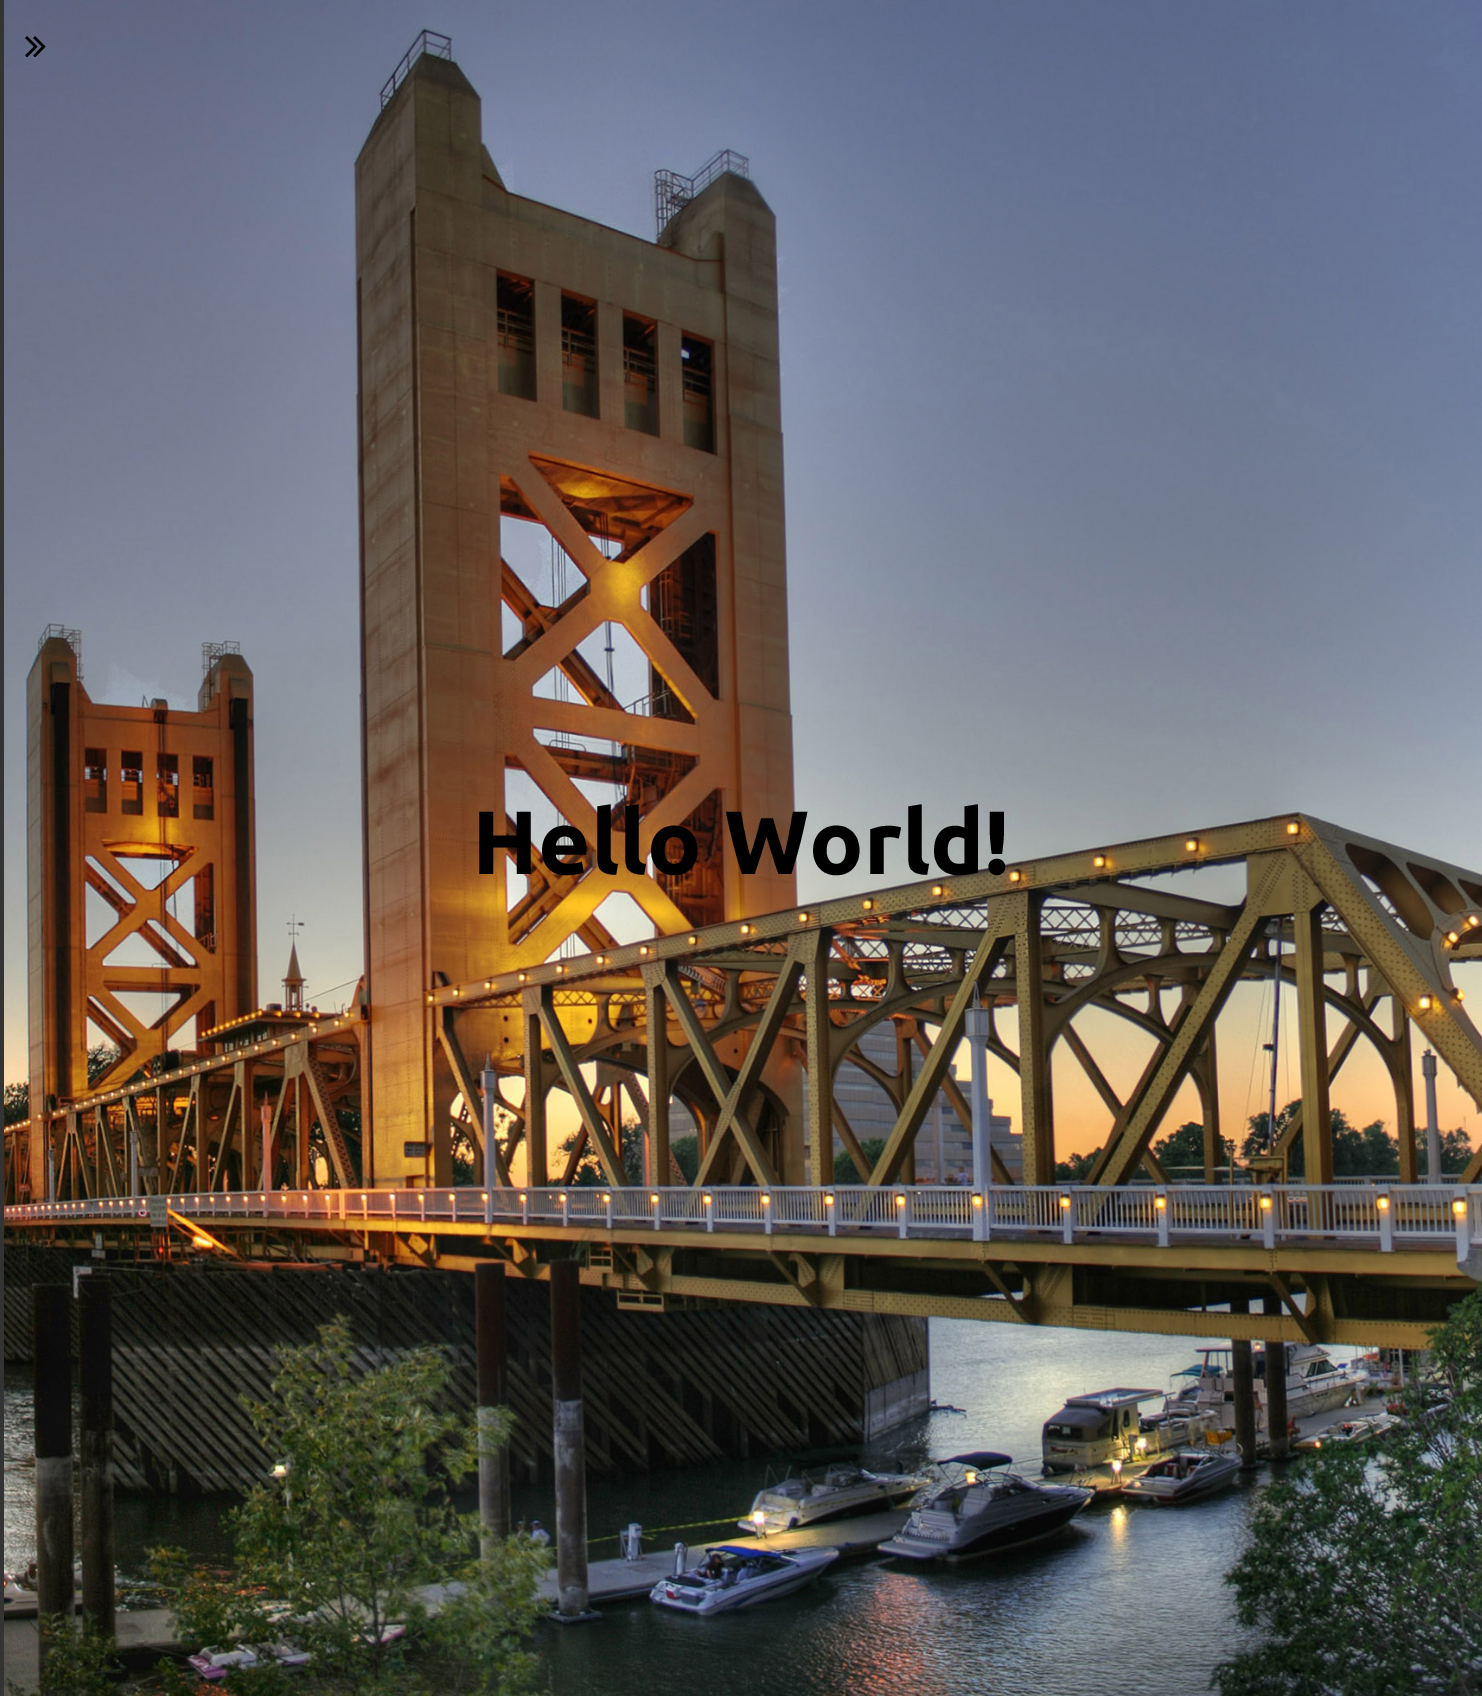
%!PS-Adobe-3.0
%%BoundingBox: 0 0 1482 1696
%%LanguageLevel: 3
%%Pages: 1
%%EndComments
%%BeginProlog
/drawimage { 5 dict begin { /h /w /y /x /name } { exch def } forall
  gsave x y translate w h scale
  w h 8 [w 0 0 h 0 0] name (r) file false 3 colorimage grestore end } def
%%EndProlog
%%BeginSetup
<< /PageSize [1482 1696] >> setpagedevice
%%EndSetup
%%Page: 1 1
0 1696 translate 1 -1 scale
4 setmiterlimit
1 setgray
0 0 1482 1696 rectfill
0.2 setgray
0 0 4 1696 rectfill
(images/2.raw) 4 0 1478 1696 drawimage
(images/1.raw) 25 36 21 21 drawimage
/Ubuntu-Bold [90 0 0 -90 0 0] selectfont
0 setgray
472 874 moveto (Hello World!) show
showpage
%%EOF
